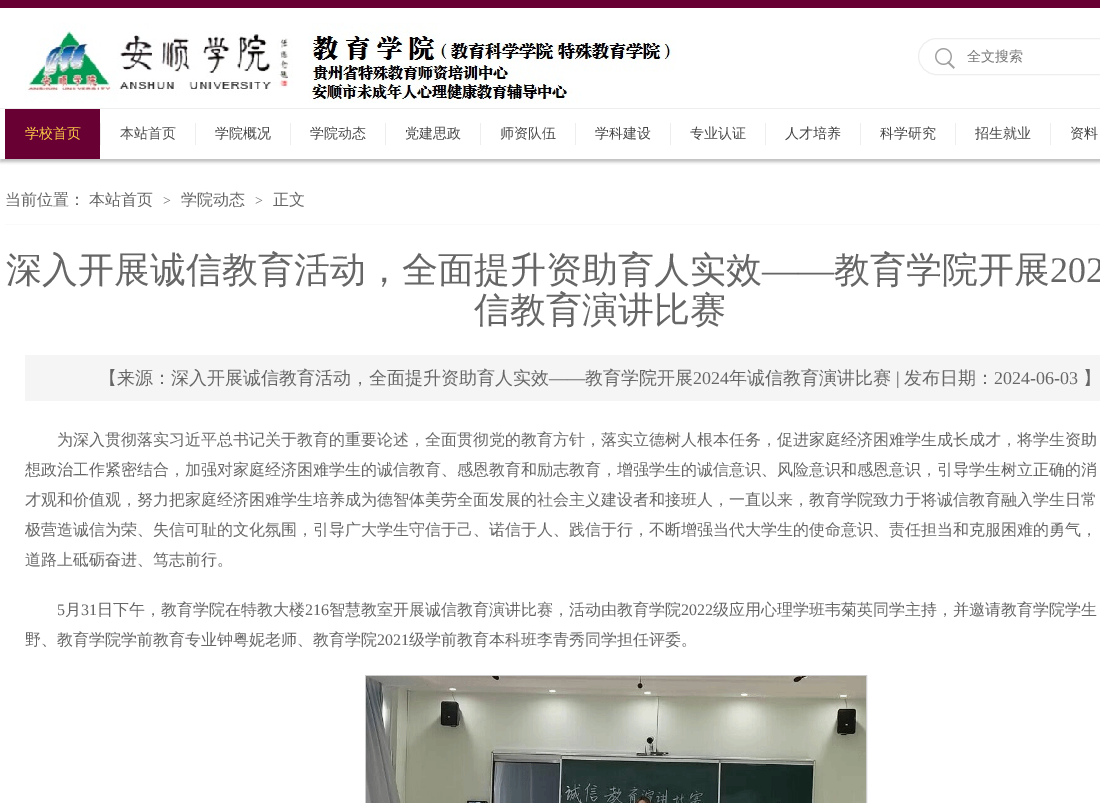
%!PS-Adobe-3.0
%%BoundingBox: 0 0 1100 803
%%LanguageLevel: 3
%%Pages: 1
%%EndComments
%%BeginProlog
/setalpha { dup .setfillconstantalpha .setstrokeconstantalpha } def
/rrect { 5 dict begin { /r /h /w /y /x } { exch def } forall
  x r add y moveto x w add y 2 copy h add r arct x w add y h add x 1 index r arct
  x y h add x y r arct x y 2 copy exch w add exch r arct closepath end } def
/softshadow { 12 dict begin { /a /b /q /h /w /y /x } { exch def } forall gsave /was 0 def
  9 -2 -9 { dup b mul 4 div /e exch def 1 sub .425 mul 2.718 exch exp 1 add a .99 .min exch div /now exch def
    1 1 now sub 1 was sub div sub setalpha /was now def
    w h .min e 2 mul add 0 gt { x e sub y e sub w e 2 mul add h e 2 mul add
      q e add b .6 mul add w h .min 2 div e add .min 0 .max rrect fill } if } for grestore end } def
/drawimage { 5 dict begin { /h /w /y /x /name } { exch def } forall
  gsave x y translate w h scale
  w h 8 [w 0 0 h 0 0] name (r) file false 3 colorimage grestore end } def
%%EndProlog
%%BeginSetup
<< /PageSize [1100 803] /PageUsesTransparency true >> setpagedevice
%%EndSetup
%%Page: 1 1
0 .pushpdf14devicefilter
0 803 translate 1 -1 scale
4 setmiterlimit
1 setgray
0 0 1100 803 rectfill
0.408 0 0.204 setrgbcolor
0 0 1100 8 rectfill
(images/1.raw) 25 23 652 80 drawimage
0.933 setgray
918.5 38.5 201 36 18 rrect stroke
(images/2.raw) 935 48 20 21 drawimage
gsave
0 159 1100 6 rectclip
0.753 setgray
0 111 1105 51 0 1.5 1 softshadow
grestore
0 108 1100 1 rectfill
0.408 0 0.204 setrgbcolor
5 109 95 50 rectfill
0.933 setgray
100 123 1 22 rectfill
195 123 1 22 rectfill
290 123 1 22 rectfill
385 123 1 22 rectfill
480 123 1 22 rectfill
575 123 1 22 rectfill
670 123 1 22 rectfill
765 123 1 22 rectfill
860 123 1 22 rectfill
955 123 1 22 rectfill
1050 123 1 22 rectfill
0.98 setgray
5 224 1095 1 rectfill
0.961 setgray
25 355 1075 46 rectfill
0.8 setgray
365.5 675.5 501 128 rectstroke
(images/3.raw) 366 676 500 127 drawimage
/WenQuanYiZenHei-Medium [14 0 0 -14 0 0] selectfont
0.459 setgray
967 61 moveto (全文搜索) show
1 0.812 0.275 setrgbcolor
25 138 moveto (学校首页) show
0.275 setgray
120 138 moveto (本站首页) show
215 138 moveto (学院概况) show
310 138 moveto (学院动态) show
405 138 moveto (党建思政) show
500 138 moveto (师资队伍) show
595 138 moveto (学科建设) show
690 138 moveto (专业认证) show
785 138 moveto (人才培养) show
880 138 moveto (科学研究) show
975 138 moveto (招生就业) show
1070 138 moveto (资料) show
/WenQuanYiZenHei-Medium [16 0 0 -16 0 0] selectfont
0.4 setgray
5 205 moveto (当前位置：) show
89 205 moveto (本站首页) show
/LiberationSerif-Regular [14 0 0 -14 0 0] selectfont
163 205 moveto (>) show
/WenQuanYiZenHei-Medium [16 0 0 -16 0 0] selectfont
181 205 moveto (学院动态) show
/LiberationSerif-Regular [14 0 0 -14 0 0] selectfont
255 205 moveto (>) show
/WenQuanYiZenHei-Medium [16 0 0 -16 0 0] selectfont
273 205 moveto (正文) show
/WenQuanYiZenHei-Medium [36 0 0 -36 0 0] selectfont
6 282 moveto (深入开展诚信教育活动，全面提升资助育人实效) show
/LiberationSerif-Regular [36 0 0 -36 0 0] selectfont
762 282 moveto (——) show
/WenQuanYiZenHei-Medium [36 0 0 -36 0 0] selectfont
834 282 moveto (教育学院开展) show
/LiberationSerif-Regular [36 0 0 -36 0 0] selectfont
1050 282 moveto (202) show
/WenQuanYiZenHei-Medium [36 0 0 -36 0 0] selectfont
474 322 moveto (信教育演讲比赛) show
/WenQuanYiZenHei-Medium [18 0 0 -18 0 0] selectfont
99 384 moveto (【来源：深入开展诚信教育活动，全面提升资助育人实效) show
/LiberationSerif-Regular [18 0 0 -18 0 0] selectfont
549 384 moveto (——) show
/WenQuanYiZenHei-Medium [18 0 0 -18 0 0] selectfont
585 384 moveto (教育学院开展) show
/LiberationSerif-Regular [18 0 0 -18 0 0] selectfont
693 384 moveto (2024) show
/WenQuanYiZenHei-Medium [18 0 0 -18 0 0] selectfont
729 384 moveto (年诚信教育演讲比赛) show
/LiberationSerif-Regular [18 0 0 -18 0 0] selectfont
896 384 moveto (|) show
/WenQuanYiZenHei-Medium [18 0 0 -18 0 0] selectfont
904 384 moveto (发布日期：) show
/LiberationSerif-Regular [18 0 0 -18 0 0] selectfont
994 384 moveto (2024-06-03) show
/WenQuanYiZenHei-Medium [18 0 0 -18 0 0] selectfont
1083 384 moveto (】) show
/WenQuanYiZenHei-Medium [16 0 0 -16 0 0] selectfont
57 445 moveto (为深入贯彻落实习近平总书记关于教育的重要论述，全面贯彻党的教育方针，落实立德树人根本任务，促进家庭经济困难学生成长成才，将学生资助) show
25 475 moveto (想政治工作紧密结合，加强对家庭经济困难学生的诚信教育、感恩教育和励志教育，增强学生的诚信意识、风险意识和感恩意识，引导学生树立正确的消) show
25 505 moveto (才观和价值观，努力把家庭经济困难学生培养成为德智体美劳全面发展的社会主义建设者和接班人，一直以来，教育学院致力于将诚信教育融入学生日常) show
25 535 moveto (极营造诚信为荣、失信可耻的文化氛围，引导广大学生守信于己、诺信于人、践信于行，不断增强当代大学生的使命意识、责任担当和克服困难的勇气，) show
25 565 moveto (道路上砥砺奋进、笃志前行。) show
/LiberationSerif-Regular [16 0 0 -16 0 0] selectfont
57 615 moveto (5) show
/WenQuanYiZenHei-Medium [16 0 0 -16 0 0] selectfont
65 615 moveto (月) show
/LiberationSerif-Regular [16 0 0 -16 0 0] selectfont
81 615 moveto (31) show
/WenQuanYiZenHei-Medium [16 0 0 -16 0 0] selectfont
97 615 moveto (日下午，教育学院在特教大楼) show
/LiberationSerif-Regular [16 0 0 -16 0 0] selectfont
305 615 moveto (216) show
/WenQuanYiZenHei-Medium [16 0 0 -16 0 0] selectfont
329 615 moveto (智慧教室开展诚信教育演讲比赛，活动由教育学院) show
/LiberationSerif-Regular [16 0 0 -16 0 0] selectfont
681 615 moveto (2022) show
/WenQuanYiZenHei-Medium [16 0 0 -16 0 0] selectfont
713 615 moveto (级应用心理学班韦菊英同学主持，并邀请教育学院学生) show
25 645 moveto (野、教育学院学前教育专业钟粤妮老师、教育学院) show
/LiberationSerif-Regular [16 0 0 -16 0 0] selectfont
377 645 moveto (2021) show
/WenQuanYiZenHei-Medium [16 0 0 -16 0 0] selectfont
409 645 moveto (级学前教育本科班李青秀同学担任评委。) show
.poppdf14devicefilter showpage
%%EOF
